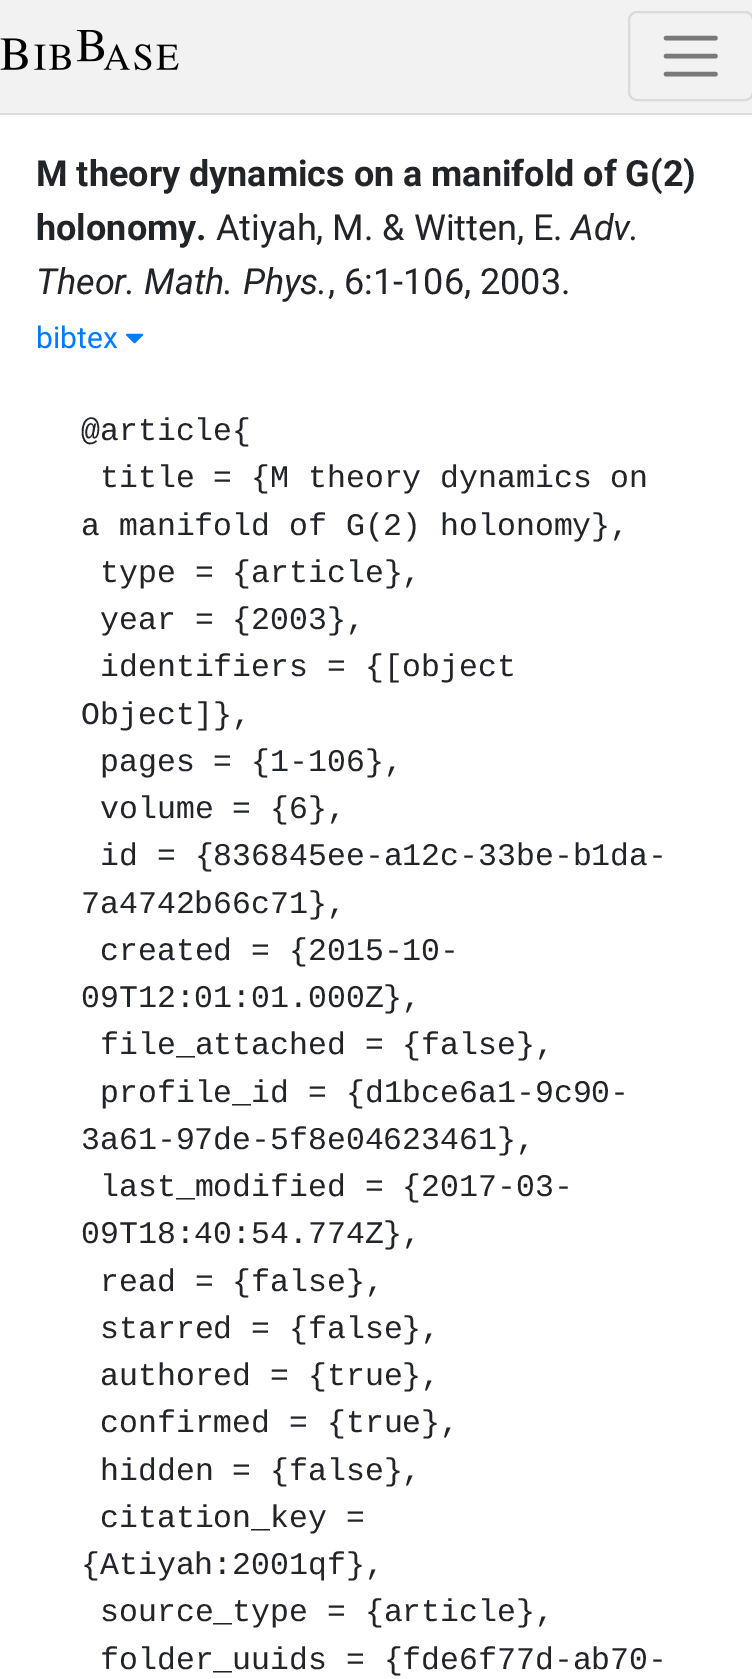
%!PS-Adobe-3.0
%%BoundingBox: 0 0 752 1679
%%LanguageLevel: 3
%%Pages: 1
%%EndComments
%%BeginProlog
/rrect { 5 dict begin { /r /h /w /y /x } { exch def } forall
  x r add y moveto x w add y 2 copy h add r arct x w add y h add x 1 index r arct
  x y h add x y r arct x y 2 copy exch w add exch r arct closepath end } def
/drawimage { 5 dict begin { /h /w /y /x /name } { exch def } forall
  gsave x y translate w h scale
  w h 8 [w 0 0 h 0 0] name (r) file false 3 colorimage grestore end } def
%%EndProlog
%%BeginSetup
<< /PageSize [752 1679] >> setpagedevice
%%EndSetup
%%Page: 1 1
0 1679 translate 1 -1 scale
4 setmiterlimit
1 setgray
0 0 752 1679 rectfill
0.949 setgray
0 0 752 113 rectfill
0.867 setgray
0 113 752 2 rectfill
(images/1.raw) 0 30 179 41 drawimage
0.855 setgray
2 setlinewidth
629 12 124 88 8 rrect stroke
0.475 setgray
4.5 setlinewidth
1 setlinecap
newpath 666 38 moveto 715.5 38 lineto 666 56 moveto 715.5 56 lineto 666 74 moveto 715.5 74 lineto stroke
(images/2.raw) 126 333 18 11 drawimage
/Roboto-Bold [36 0 0 -36 0 0] selectfont
0.129 0.145 0.161 setrgbcolor
36 186 moveto (M theory dynamics on a manifold of G\(2\)) show
36 240 moveto (holonomy.) show
/Roboto-Regular [36 0 0 -36 0 0] selectfont
216 240 moveto (Atiyah, M. & Witten, E.) show
/Roboto-Italic [36 0 0 -36 0 0] selectfont
571 240 moveto (Adv.) show
36 294 moveto (Theor. Math. Phys.) show
/Roboto-Regular [36 0 0 -36 0 0] selectfont
328 294 moveto (, 6:1-106, 2003.) show
/Roboto-Regular [30 0 0 -30 0 0] selectfont
0 0.482 1 setrgbcolor
36 348 moveto (bibtex) show
/LiberationMono-Regular [31.5 0 0 -31.5 0 0] selectfont
0.129 0.145 0.161 setrgbcolor
81 440 moveto (@article{) show
100 487 moveto (title = {M theory dynamics on) show
81 535 moveto (a manifold of G\(2\) holonomy},) show
100 582 moveto (type = {article},) show
100 629 moveto (year = {2003},) show
100 676 moveto (identifiers = {[object) show
81 724 moveto (Object]},) show
100 771 moveto (pages = {1-106},) show
100 818 moveto (volume = {6},) show
100 865 moveto (id = {836845ee-a12c-33be-b1da-) show
81 913 moveto (7a4742b66c71},) show
100 960 moveto (created = {2015-10-) show
81 1007 moveto (09T12:01:01.000Z},) show
100 1054 moveto (file_attached = {false},) show
100 1102 moveto (profile_id = {d1bce6a1-9c90-) show
81 1149 moveto (3a61-97de-5f8e04623461},) show
100 1196 moveto (last_modified = {2017-03-) show
81 1243 moveto (09T18:40:54.774Z},) show
100 1291 moveto (read = {false},) show
100 1338 moveto (starred = {false},) show
100 1385 moveto (authored = {true},) show
100 1432 moveto (confirmed = {true},) show
100 1480 moveto (hidden = {false},) show
100 1527 moveto (citation_key =) show
81 1574 moveto ({Atiyah:2001qf},) show
100 1621 moveto (source_type = {article},) show
100 1669 moveto (folder_uuids = {fde6f77d-ab70-) show
showpage
%%EOF
